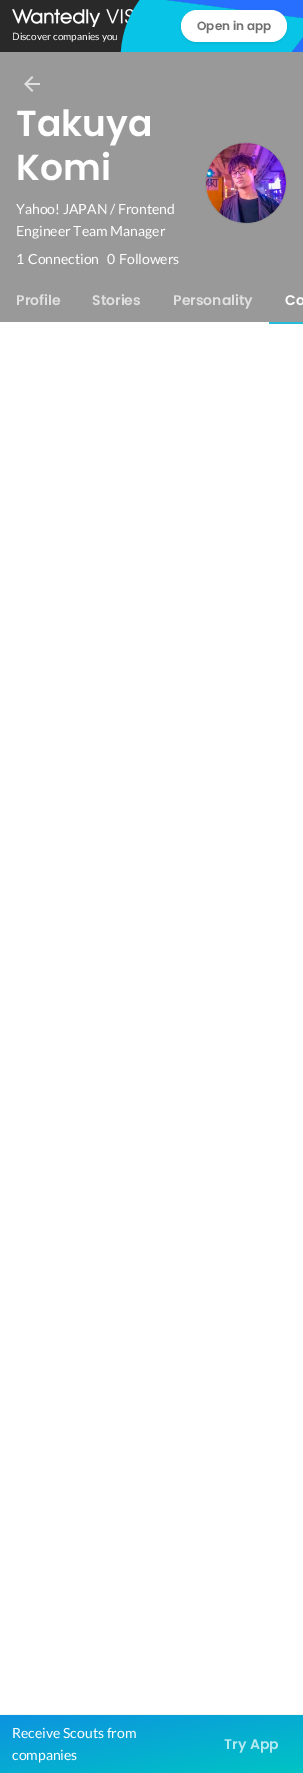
%!PS-Adobe-3.0
%%BoundingBox: 0 0 303 1773
%%LanguageLevel: 3
%%Pages: 1
%%EndComments
%%BeginProlog
/setalpha { dup .setfillconstantalpha .setstrokeconstantalpha } def
/rrect { 5 dict begin { /r /h /w /y /x } { exch def } forall
  x r add y moveto x w add y 2 copy h add r arct x w add y h add x 1 index r arct
  x y h add x y r arct x y 2 copy exch w add exch r arct closepath end } def
/softshadow { 12 dict begin { /a /b /q /h /w /y /x } { exch def } forall gsave /was 0 def
  9 -2 -9 { dup b mul 4 div /e exch def 1 sub .425 mul 2.718 exch exp 1 add a .99 .min exch div /now exch def
    1 1 now sub 1 was sub div sub setalpha /was now def
    w h .min e 2 mul add 0 gt { x e sub y e sub w e 2 mul add h e 2 mul add
      q e add b .6 mul add w h .min 2 div e add .min 0 .max rrect fill } if } for grestore end } def
/drawimage { 5 dict begin { /h /w /y /x /name } { exch def } forall
  gsave x y translate w h scale
  w h 8 [w 0 0 h 0 0] name (r) file false 3 colorimage grestore end } def
%%EndProlog
%%BeginSetup
<< /PageSize [303 1773] /PageUsesTransparency true >> setpagedevice
%%EndSetup
%%Page: 1 1
0 .pushpdf14devicefilter
0 1773 translate 1 -1 scale
4 setmiterlimit
1 setgray
0 0 303 1773 rectfill
0.161 setgray
0 0 303 52 rectfill
0.149 0.435 1 setrgbcolor
newpath 183 -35 moveto 235 -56 294 -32 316 20 curveto 142 -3 lineto 152 -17 166 -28 183 -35 curveto closepath eofill
newpath 261 153 moveto 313 131 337 72 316 20 curveto 209 160 lineto 226 162 244 160 261 153 curveto closepath eofill
(images/1.raw) 12 9 121 18 drawimage
0.031 0.773 0.906 setrgbcolor
newpath 129 98 moveto 114 63 120 25 142 -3 curveto 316 20 lineto 209 159 lineto 174 155 143 132 129 98 curveto closepath eofill
0 setgray
181 11 106 32 16 1.5 0.1 softshadow
1 setgray
181 10 106 32 16 rrect fill
0.6 setgray
0 52 303 270 rectfill
(images/2.raw) 24 76 16 16 drawimage
0.565 setgray
newpath 246 183 40.5 0 360 arc closepath stroke
(images/3.raw) 206 143 80 80 drawimage
0.129 0.741 0.859 setrgbcolor
269 322 34 2 rectfill
0.961 setgray
-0.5 1714.5 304 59 rectstroke
gsave newpath 0 1715 moveto 303 1715 lineto 303 1773 lineto 0 1773 lineto closepath clip newpath
<< /ShadingType 2 /ColorSpace /DeviceRGB /Coords [141 1688 162 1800] /Extend [true true] /Function << /FunctionType 2 /Domain [0 1] /C0 [0.051 0.576 0.878] /C1 [0 0.769 0.769] /N 1 >> >> shfill grestore
/Poppins-SemiBold [12 0 0 -12 0 0] selectfont
0.439 setgray
197 30 moveto (Open in app) show
/Lato-Regular [10 0 0 -10 0 0] selectfont
1 setgray
12 40 moveto (Discover companies you) show
/Poppins-SemiBold [36 0 0 -36 0 0] selectfont
16 136 moveto (Takuya) show
16 180 moveto (Komi) show
/Lato-Regular [14 0 0 -14 0 0] selectfont
16 214 moveto (Yahoo! JAPAN / Frontend) show
16 236 moveto (Engineer Team Manager) show
16 264 moveto (1) show
28 264 moveto (Connection) show
107 264 moveto (0) show
119 264 moveto (Followers) show
/Poppins-SemiBold [14 0 0 -14 0 0] selectfont
0.878 setgray
16 305 moveto (Profile) show
92 305 moveto (Stories) show
173 305 moveto (Personality) show
1 setgray
285 305 moveto (Co) show
/Lato-Regular [14 0 0 -14 0 0] selectfont
12 1738 moveto (Receive Scouts from) show
12 1760 moveto (companies) show
/Poppins-SemiBold [14 0 0 -14 0 0] selectfont
0.706 0.914 0.941 setrgbcolor
224 1749 moveto (Try App) show
.poppdf14devicefilter showpage
%%EOF
